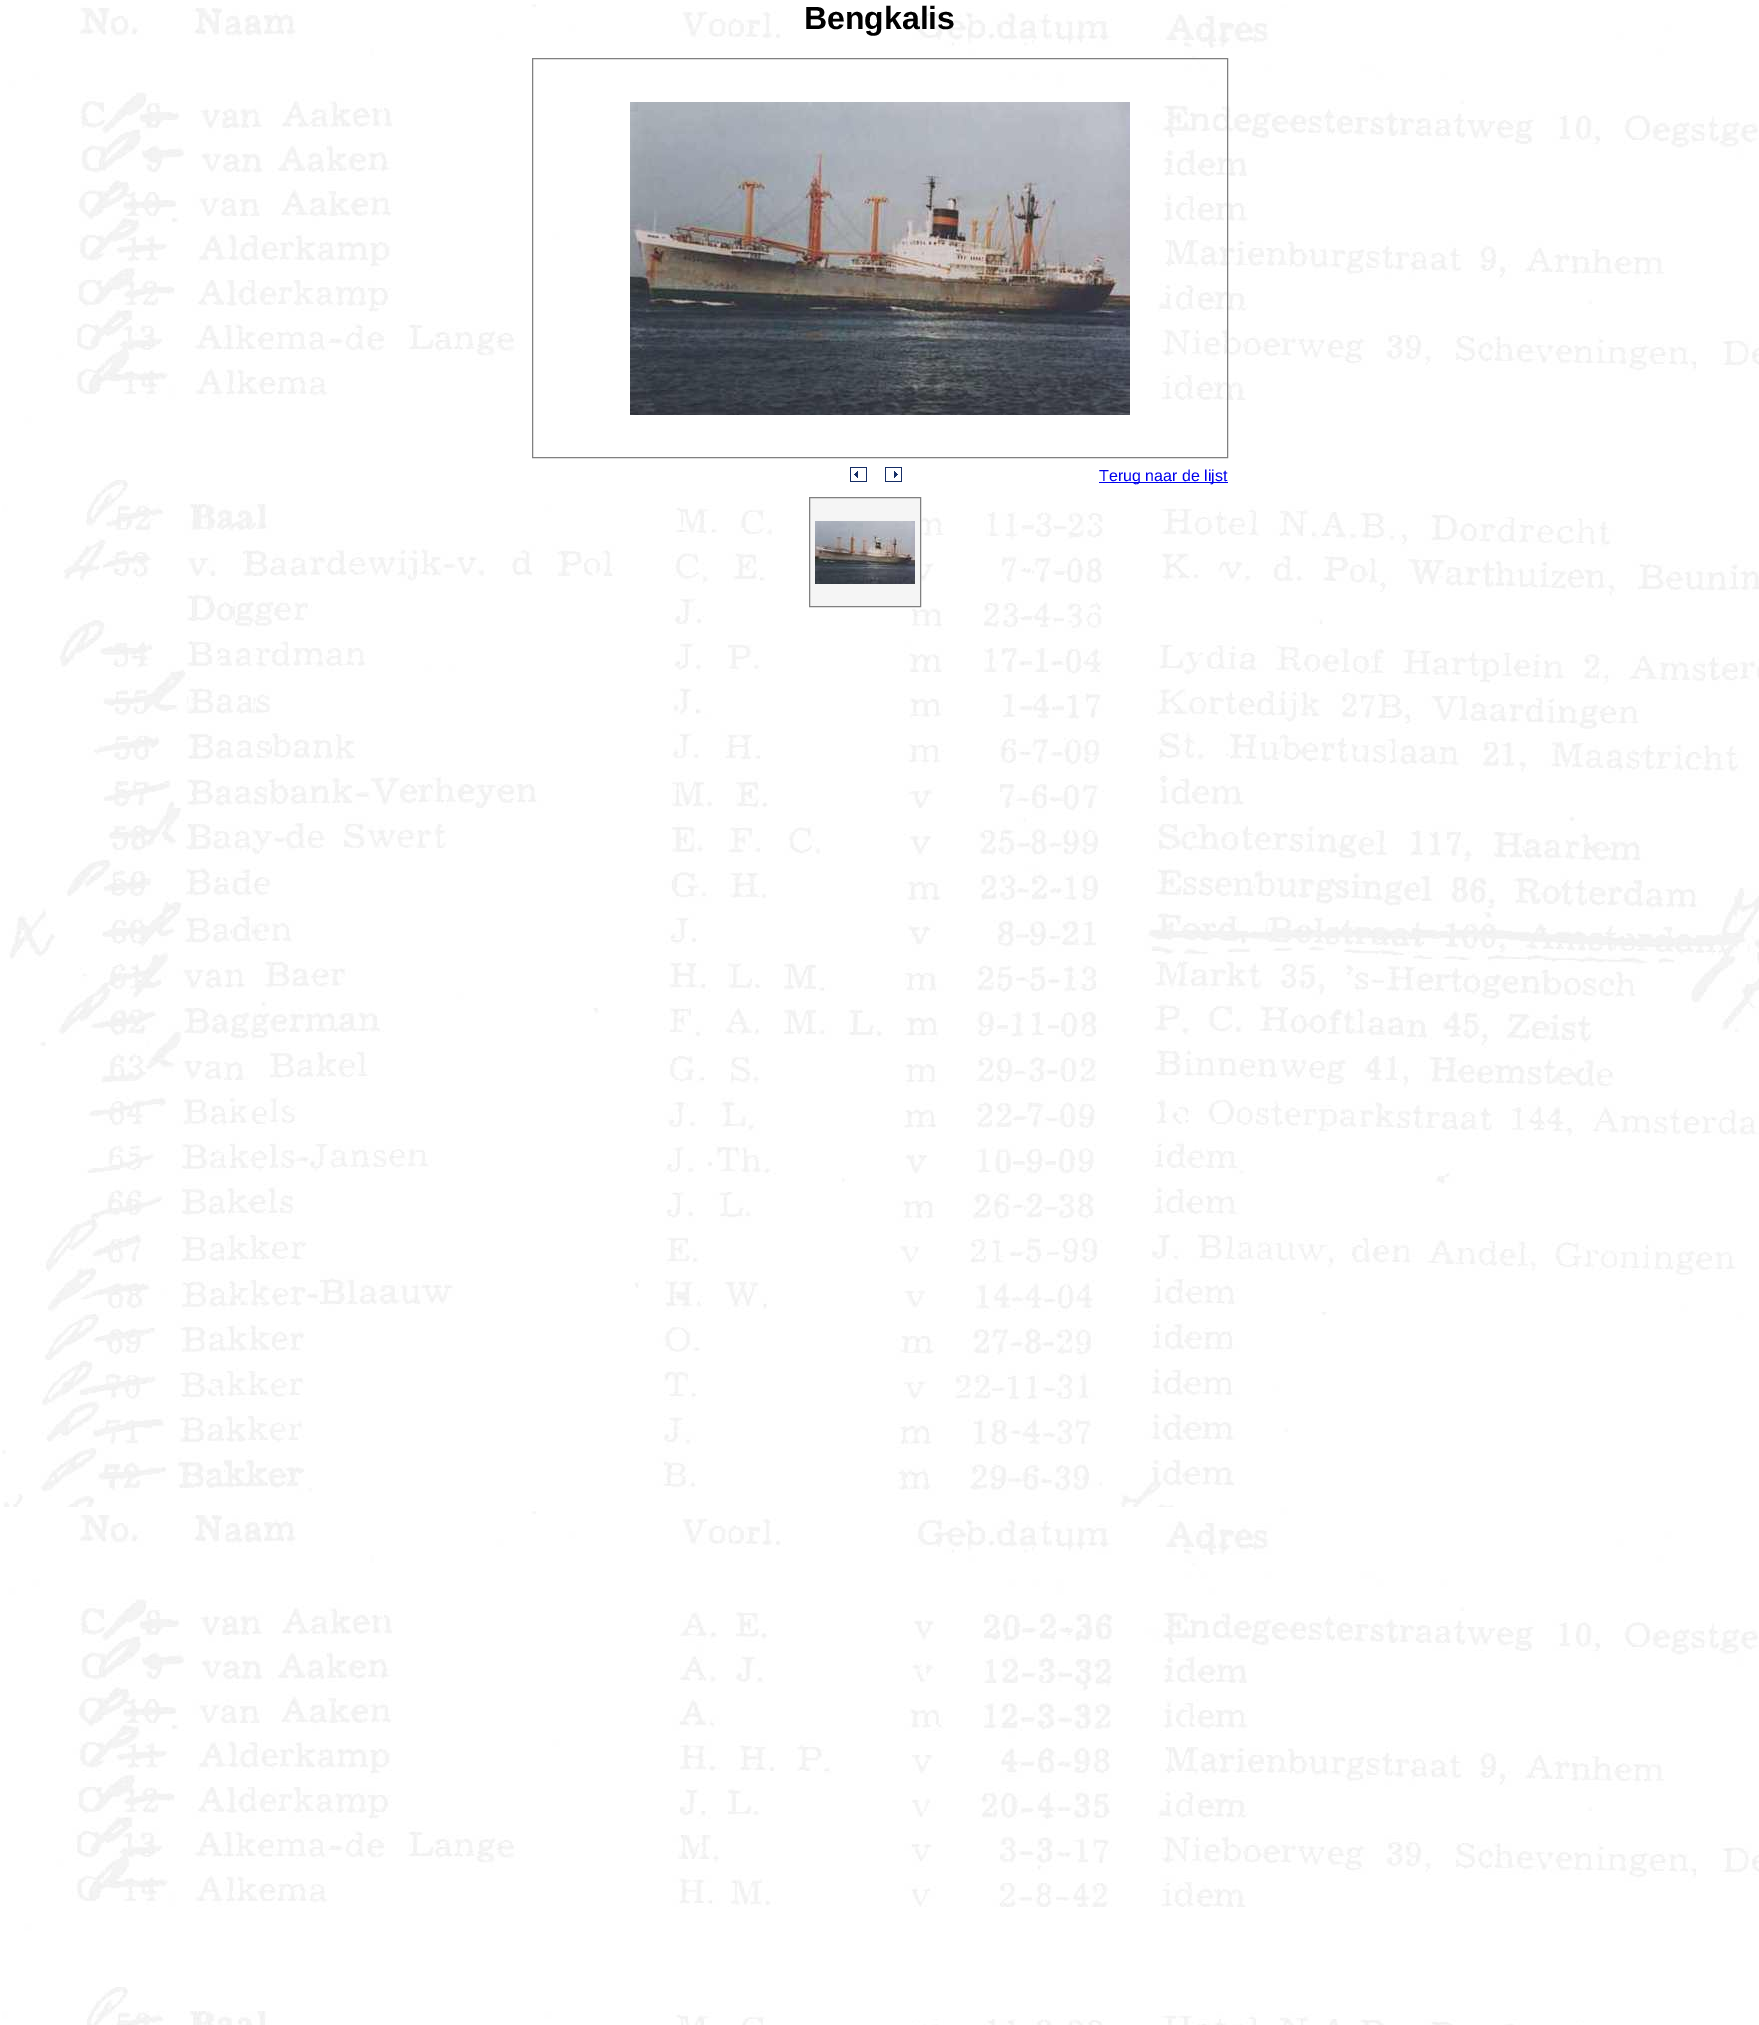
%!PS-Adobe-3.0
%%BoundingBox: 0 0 1759 2025
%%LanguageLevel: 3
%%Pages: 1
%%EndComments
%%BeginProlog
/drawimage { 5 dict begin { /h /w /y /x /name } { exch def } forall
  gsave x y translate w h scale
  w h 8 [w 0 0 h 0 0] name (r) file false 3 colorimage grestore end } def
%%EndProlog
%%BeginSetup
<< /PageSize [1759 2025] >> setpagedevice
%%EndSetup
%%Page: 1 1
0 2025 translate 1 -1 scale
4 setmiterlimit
1 setgray
0 0 1759 2025 rectfill
(images/1.raw) 2 4 1757 2021 drawimage
0.502 setgray
532.5 58.5 695 399 rectstroke
(images/2.raw) 630 102 500 313 drawimage
(images/3.raw) 850 467 17 15 drawimage
(images/4.raw) 885 467 17 15 drawimage
0 0 0.933 setrgbcolor
1099 482 129 1 rectfill
0.961 setgray
newpath 809.5 497.5 moveto 920.5 497.5 lineto 920.5 606.5 lineto 809.5 606.5 lineto closepath gsave fill grestore
0.502 setgray
stroke
(images/5.raw) 815 521 100 63 drawimage
/LiberationSans-Bold [32 0 0 -32 0 0] selectfont
0 setgray
804 29 moveto (Bengkalis) show
/LiberationSans-Regular [16 0 0 -16 0 0] selectfont
0 0 0.933 setrgbcolor
1099 481 moveto (Terug naar de lijst) show
showpage
%%EOF
